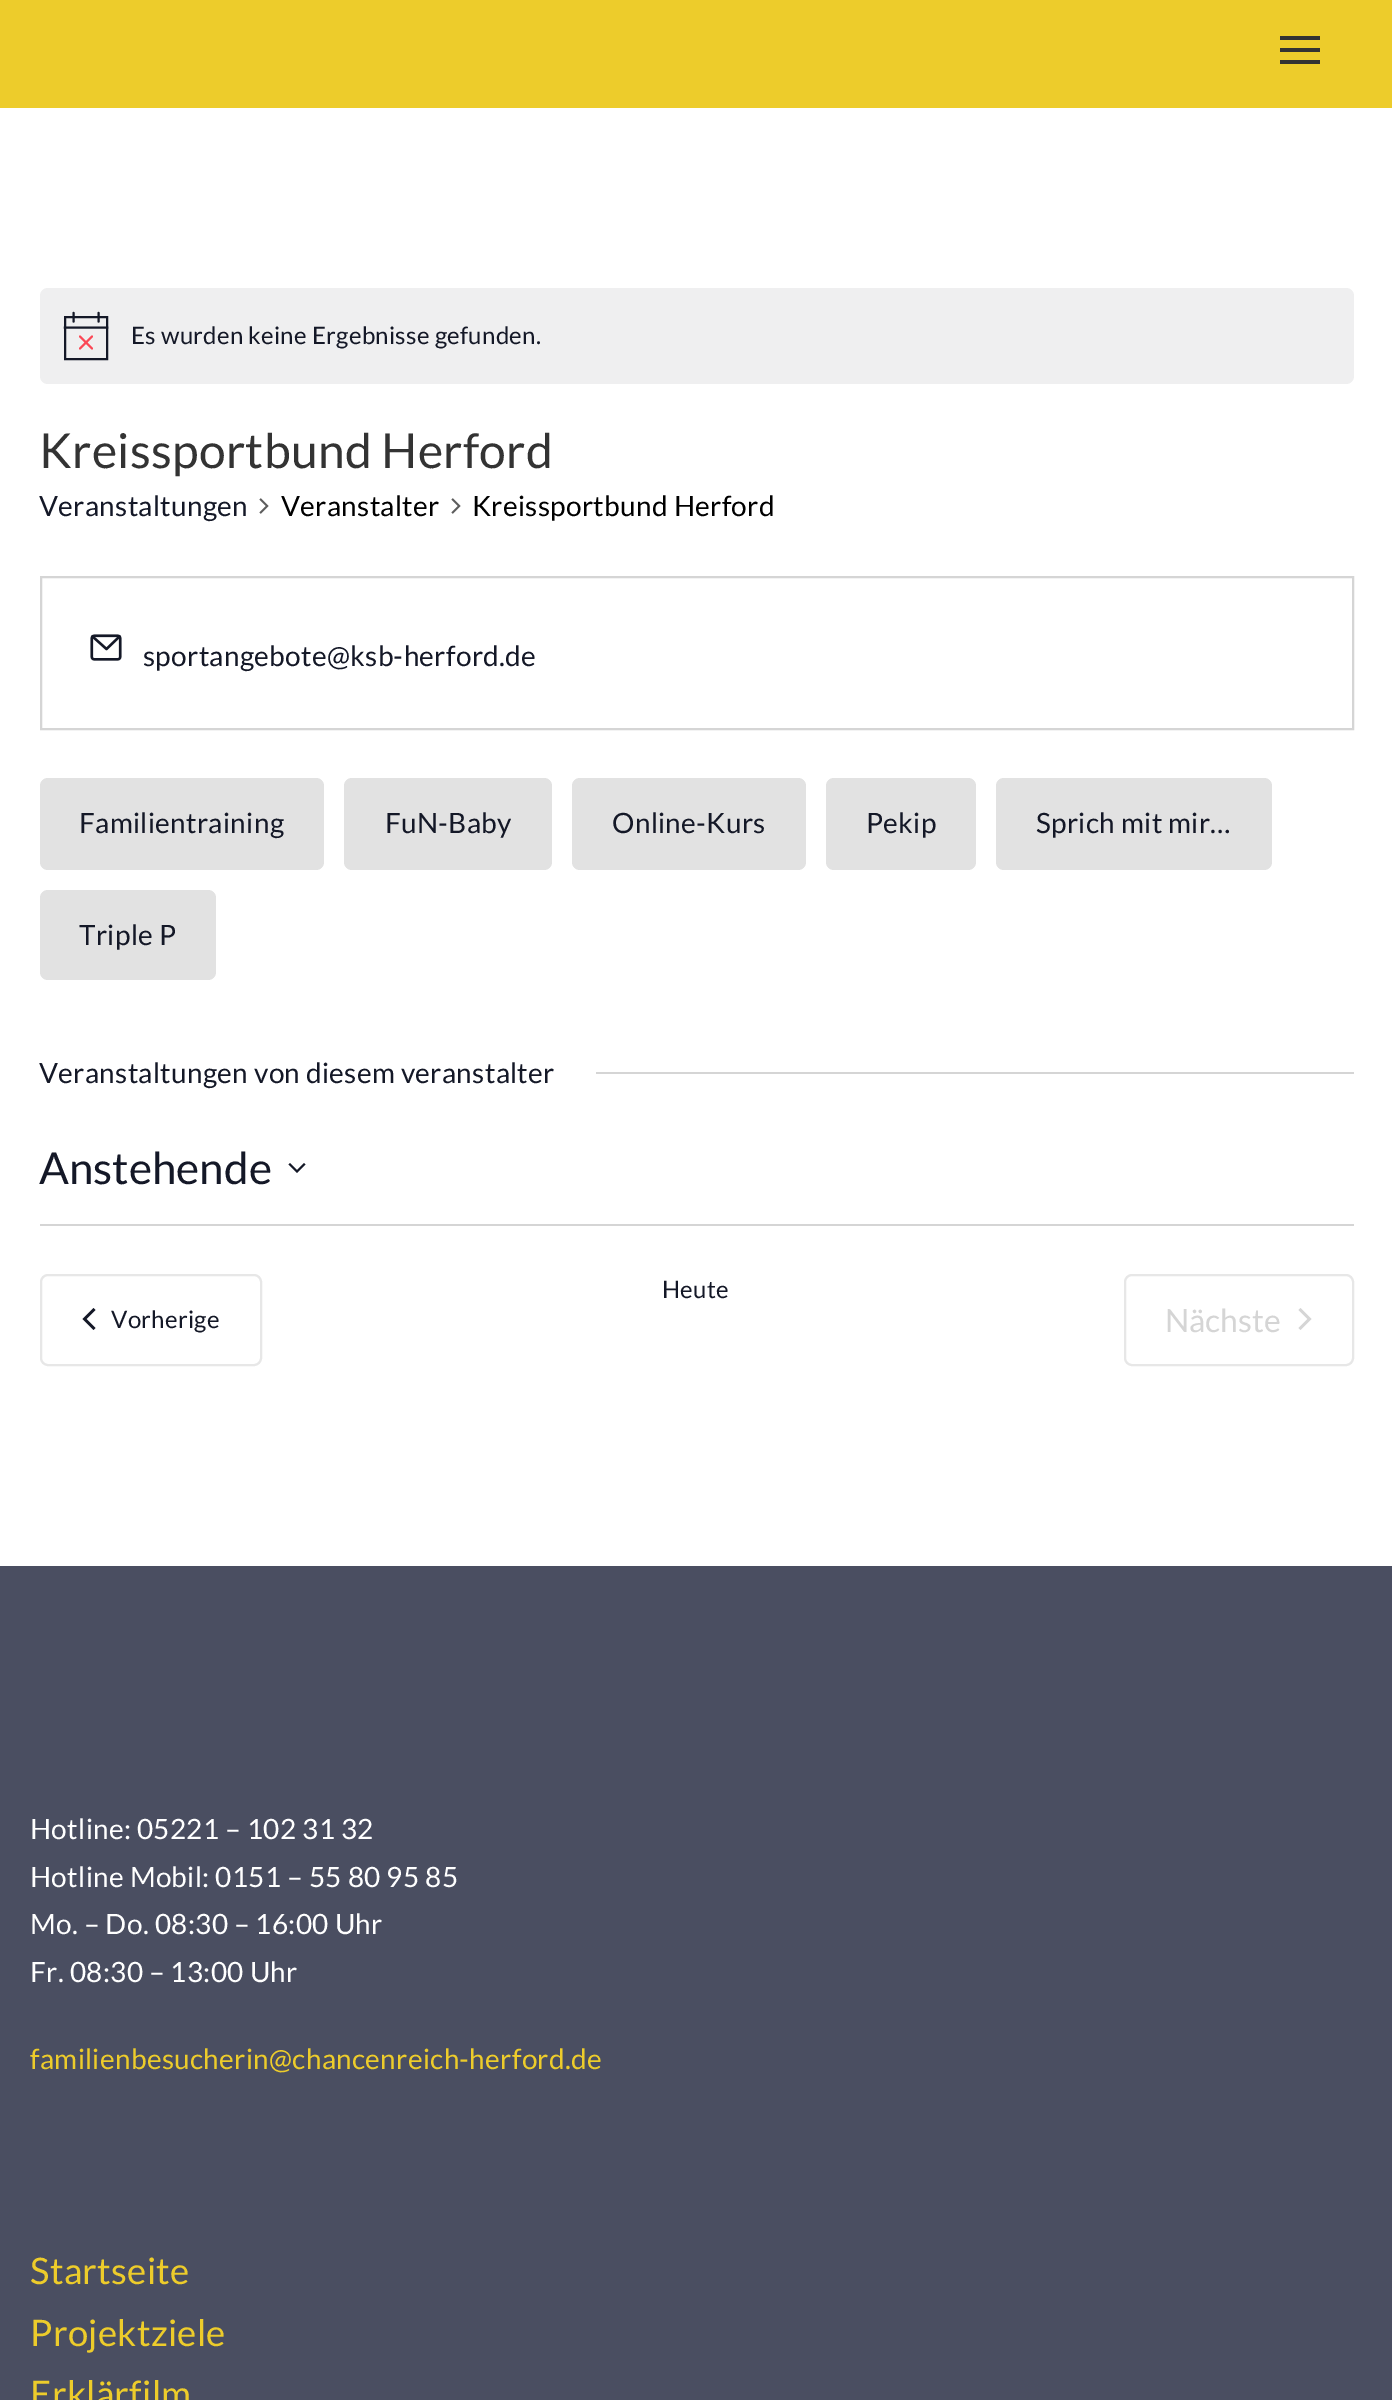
%!PS-Adobe-3.0
%%BoundingBox: 0 0 1392 2400
%%LanguageLevel: 3
%%Pages: 1
%%EndComments
%%BeginProlog
/rrect { 5 dict begin { /r /h /w /y /x } { exch def } forall
  x r add y moveto x w add y 2 copy h add r arct x w add y h add x 1 index r arct
  x y h add x y r arct x y 2 copy exch w add exch r arct closepath end } def
/drawimage { 5 dict begin { /h /w /y /x /name } { exch def } forall
  gsave x y translate w h scale
  w h 8 [w 0 0 h 0 0] name (r) file false 3 colorimage grestore end } def
%%EndProlog
%%BeginSetup
<< /PageSize [1392 2400] >> setpagedevice
%%EndSetup
%%Page: 1 1
0 2400 translate 1 -1 scale
4 setmiterlimit
0.929 0.8 0.169 setrgbcolor
0 0 1392 2400 rectfill
0.2 setgray
1280 36 40 4 rectfill
1280 48 40 4 rectfill
1280 60 40 4 rectfill
1 setgray
0 108 1392 1458 rectfill
0.937 0.937 0.941 setrgbcolor
40 288 1314 96 8 rrect fill
0.078 0.094 0.153 setrgbcolor
2.1 setlinewidth
newpath 65 317 moveto 107 317 lineto 107 359 lineto 65 359 lineto closepath stroke
0.984 0.282 0.337 setrgbcolor
1 setlinecap
newpath 80 336.5 moveto 92 348.5 lineto 92 336.5 moveto 80 348.5 lineto stroke
0.078 0.094 0.153 setrgbcolor
newpath 73.5 313 moveto 73.5 321.5 lineto 98.5 313 moveto 98.5 321.5 lineto stroke
2 setlinecap
newpath 65 327.5 moveto 107 327.5 lineto stroke
(images/1.raw) 259 498 10 16 drawimage
(images/1.raw) 451 498 10 16 drawimage
0.835 setgray
2 setlinewidth
0 setlinecap
41 577 1312 152 rectstroke
(images/2.raw) 90 634 32 27 drawimage
0.886 setgray
40 778 284 92 8 rrect fill
344 778 208 92 8 rrect fill
572 778 234 92 8 rrect fill
826 778 150 92 8 rrect fill
996 778 276 92 8 rrect fill
40 890 176 90 8 rrect fill
0.835 setgray
596 1072 758 2 rectfill
0.078 0.094 0.153 setrgbcolor
newpath 290 1163 moveto 297 1170 lineto 304 1163 lineto 305.5 1164.5 lineto 297 1173 lineto 288.5 1164.5 lineto closepath eofill
0.835 setgray
40 1224 1314 2 rectfill
0.906 setgray
41 1275 220 90 7 rrect stroke
0.078 0.094 0.153 setrgbcolor
newpath 95.5 1328 moveto 93.5 1330 lineto 82.5 1319 lineto 93.5 1308 lineto 95.5 1310 lineto 86.5 1319 lineto closepath fill
0.906 setgray
1125 1275 228 90 7 rrect stroke
0.835 setgray
newpath 1298.5 1310 moveto 1300.5 1308 lineto 1311.5 1319 lineto 1300.5 1330 lineto 1298.5 1328 lineto 1307.5 1319 lineto closepath fill
0.29 0.306 0.38 setrgbcolor
0 1566 1392 834 rectfill
/Lato-Regular [24 0 0 -24 0 0] selectfont
0.078 0.094 0.153 setrgbcolor
131 344 moveto 0.3 0 (Es wurden keine Ergebnisse gefunden.) ashow
/Lato-Regular [48 0 0 -48 0 0] selectfont
0.2 setgray
39 468 moveto 0.3 0 (Kreissportbund Herford) ashow
/Lato-Regular [28 0 0 -28 0 0] selectfont
0.078 0.094 0.153 setrgbcolor
39 516 moveto 0.3 0 (Veranstaltungen) ashow
0 setgray
281 516 moveto 0.3 0 (Veranstalter) ashow
472 516 moveto 0.3 0 (Kreissportbund Herford) ashow
0.078 0.094 0.153 setrgbcolor
143 666 moveto 0.3 0 (sportangebote@ksb-herford.de) ashow
79 833 moveto 0.3 0 (Familientraining) ashow
385 833 moveto 0.3 0 (FuN-Baby) ashow
612 833 moveto 0.3 0 (Online-Kurs) ashow
866 833 moveto 0.3 0 (Pekip) ashow
1036 833 moveto 0.3 0 (Sprich mit mir…) ashow
79 945 moveto 0.3 0 (Triple P) ashow
39 1083 moveto 0.3 0 (Veranstaltungen von diesem veranstalter) ashow
/Lato-Regular [44 0 0 -44 0 0] selectfont
39 1184 moveto (Anstehende) show
/Lato-Regular [24 0 0 -24 0 0] selectfont
662 1298 moveto 0.3 0 (Heute) ashow
111 1328 moveto 0.3 0 (Vorherige) ashow
/Lato-Regular [32 0 0 -32 0 0] selectfont
0.835 setgray
1165 1332 moveto (Nächste) show
/Lato-Regular [28 0 0 -28 0 0] selectfont
1 setgray
30 1839 moveto 0.3 0 (Hotline: 05221 – 102 31 32) ashow
30 1887 moveto 0.3 0 (Hotline Mobil: 0151 – 55 80 95 85) ashow
30 1934 moveto 0.3 0 (Mo. – Do. 08:30 – 16:00 Uhr) ashow
30 1982 moveto 0.3 0 (Fr. 08:30 – 13:00 Uhr) ashow
0.929 0.8 0.169 setrgbcolor
30 2069 moveto 0.3 0 (familienbesucherin@chancenreich-herford.de) ashow
/Lato-Regular [36.5 0 0 -36.5 0 0] selectfont
30 2284 moveto 0.3 0 (Startseite) ashow
30 2346 moveto 0.3 0 (Projektziele) ashow
30 2407 moveto 0.3 0 (Erklärfilm) ashow
showpage
%%EOF
